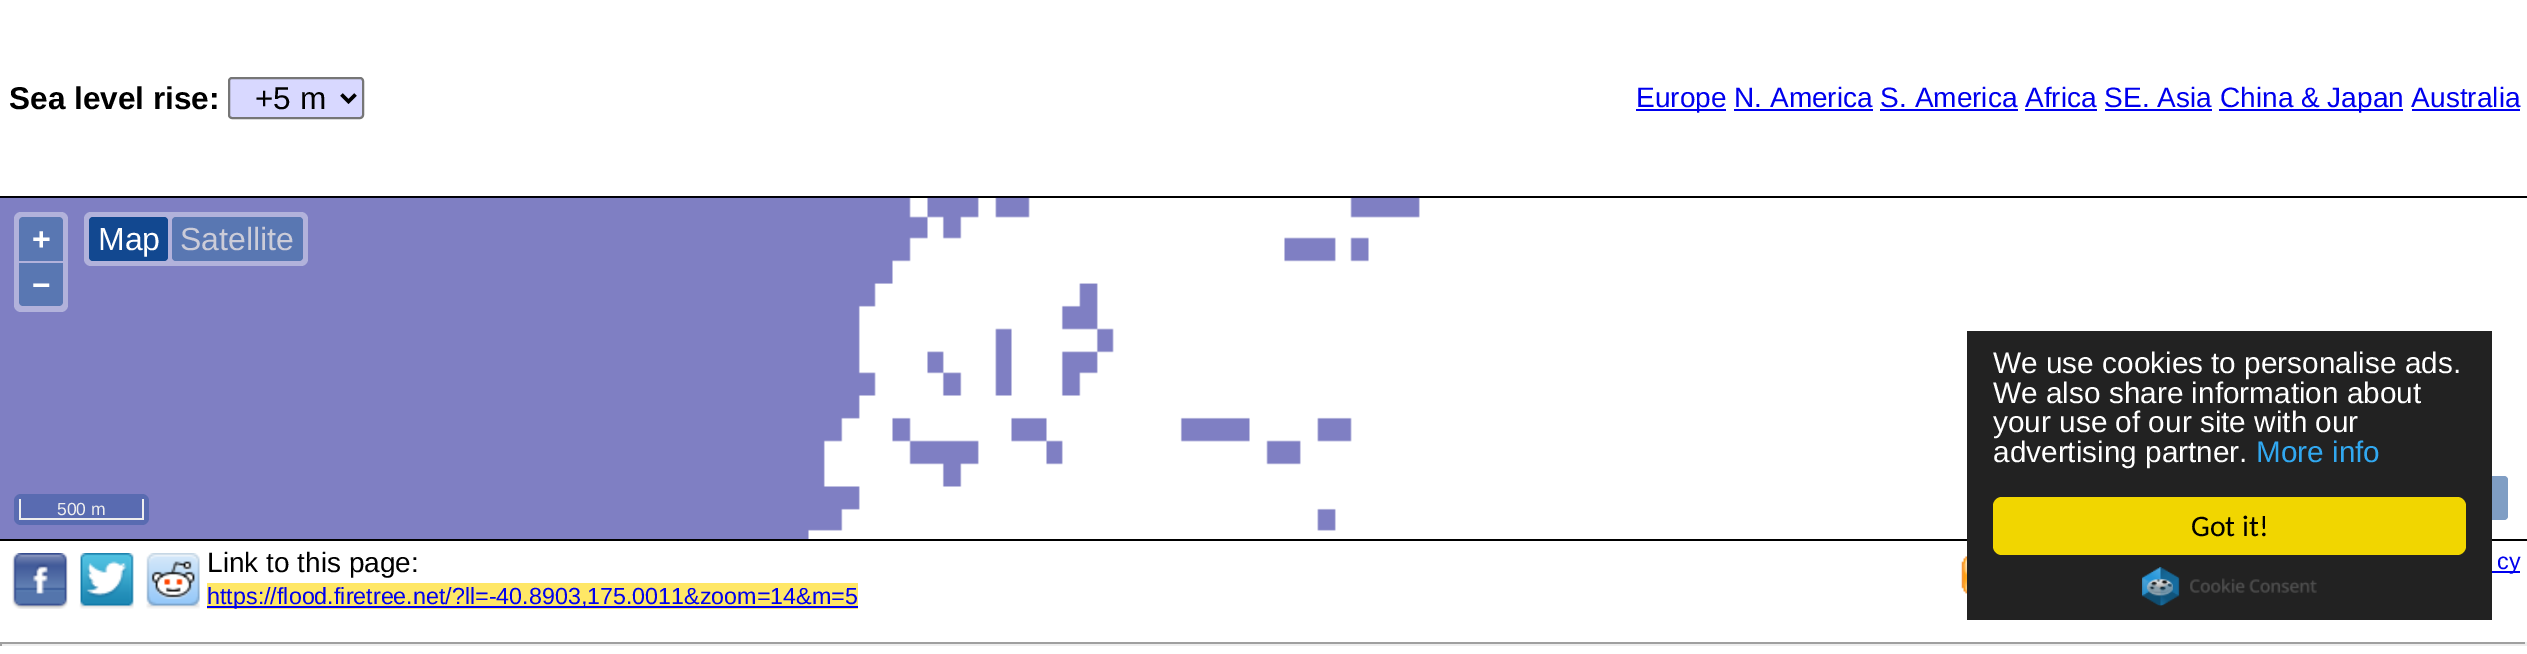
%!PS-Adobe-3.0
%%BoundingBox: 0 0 2527 654
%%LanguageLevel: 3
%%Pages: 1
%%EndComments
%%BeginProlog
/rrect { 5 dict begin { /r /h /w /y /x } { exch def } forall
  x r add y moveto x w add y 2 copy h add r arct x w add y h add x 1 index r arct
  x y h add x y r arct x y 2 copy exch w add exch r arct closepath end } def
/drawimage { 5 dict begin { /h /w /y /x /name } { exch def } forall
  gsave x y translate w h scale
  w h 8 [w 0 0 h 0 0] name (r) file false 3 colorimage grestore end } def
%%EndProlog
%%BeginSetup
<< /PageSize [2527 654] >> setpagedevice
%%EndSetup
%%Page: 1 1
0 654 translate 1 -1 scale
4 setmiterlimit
1 setgray
0 0 2527 654 rectfill
0.847 0.847 1 setrgbcolor
229 78 134 40 3 rrect gsave fill grestore
0.463 setgray
2 setlinewidth
stroke
0 setgray
3.5 setlinewidth
newpath 341.5 94.5 moveto 348.5 101.5 lineto 355.5 94.5 lineto stroke
0 0 0.933 setrgbcolor
1636 109 90 2 rectfill
2219 109 184 2 rectfill
1734 109 139 2 rectfill
1880 109 138 2 rectfill
2025 109 72 2 rectfill
2105 109 107 2 rectfill
2412 109 108 2 rectfill
0 setgray
0 196 2527 2 rectfill
0 539 2527 2 rectfill
(images/1.raw) 0 197 1420 342 drawimage
0.698 0.698 0.859 setrgbcolor
14 212 54 100 7 rrect fill
0.349 0.467 0.698 setrgbcolor
newpath 23 217 moveto 59 217 lineto 61 217 63 219 63 221 curveto 63 261 lineto 19 261 lineto 19 221 lineto 19 219 21 217 23 217 curveto closepath fill
newpath 19 263 moveto 63 263 lineto 63 302 lineto 63 304 61 306 59 306 curveto 23 306 lineto 21 306 19 304 19 302 curveto closepath fill
0.698 0.698 0.859 setrgbcolor
84 212 224 54 7 rrect fill
0.071 0.282 0.565 setrgbcolor
89 217 79 44 4 rrect fill
0.349 0.467 0.698 setrgbcolor
172 217 131 44 4 rrect fill
0.349 0.42 0.694 setrgbcolor
14 494 135 31 7 rrect fill
0.933 setgray
142 499 2 21 rectfill
19 518 125 2 rectfill
19 499 2 21 rectfill
0.502 0.62 0.769 setrgbcolor
2464 476 44 44 4 rrect fill
(images/2.raw) 12 553 56 56 drawimage
(images/3.raw) 79 553 55 56 drawimage
(images/4.raw) 146 553 54 56 drawimage
(images/5.raw) 1961 556 6 38 drawimage
0 0 0.933 setrgbcolor
2492 571 28 2 rectfill
1 0.906 0.4 setrgbcolor
207 583 651 26 rectfill
0 0 0.933 setrgbcolor
207 606 651 2 rectfill
0.133 setgray
1967 331 525 289 rectfill
0.945 0.839 0 setrgbcolor
1993 497 473 58 9 rrect fill
(images/6.raw) 2142 567 175 39 drawimage
0.624 setgray
0 642 2527 2 rectfill
0.933 setgray
2525 642 2 4 rectfill
0 644 2527 2 rectfill
0.624 setgray
0 642 2 4 rectfill
/LiberationSans-Bold [31.5 0 0 -31.5 0 0] selectfont
0 setgray
9 109 moveto (Sea level rise:) show
/LiberationSans-Regular [31.5 0 0 -31.5 0 0] selectfont
255 109 moveto (+5 m) show
/LiberationSans-Regular [28 0 0 -28 0 0] selectfont
0 0 0.933 setrgbcolor
1636 107 moveto (Europe N. America S. America Africa SE. Asia) show
2220 107 moveto (China & Japan Australia) show
/LiberationSans-Bold [32 0 0 -32 0 0] selectfont
1 setgray
32 250 moveto (+) show
32 296 moveto (−) show
/LiberationSans-Regular [32 0 0 -32 0 0] selectfont
98 250 moveto (Map) show
0.8 0.8 0.847 setrgbcolor
180 250 moveto (Satellite) show
/LiberationSans-Regular [17.5 0 0 -17.5 0 0] selectfont
0.933 setgray
57 515 moveto (500 m) show
/LiberationSans-Regular [28 0 0 -28 0 0] selectfont
0 setgray
207 572 moveto (Link to this page:) show
/LiberationSans-Regular [23.3 0 0 -23.3 0 0] selectfont
0 0 0.933 setrgbcolor
2497 569 moveto (cy) show
207 604 moveto (https://flood.firetree.net/?ll=-40.8903,175.0011&zoom=14&m=5) show
/LiberationSans-Regular [29.75 0 0 -29.75 0 0] selectfont
1 setgray
1993 373 moveto (We use cookies to personalise ads.) show
1993 403 moveto (We also share information about) show
1993 432 moveto (your use of our site with our) show
1993 462 moveto (advertising partner.) show
0.192 0.659 0.941 setrgbcolor
2256 462 moveto (More info) show
/Carlito-Regular [29.75 0 0 -29.75 0 0] selectfont
0 setgray
2191 536 moveto (Got it!) show
showpage
%%EOF
